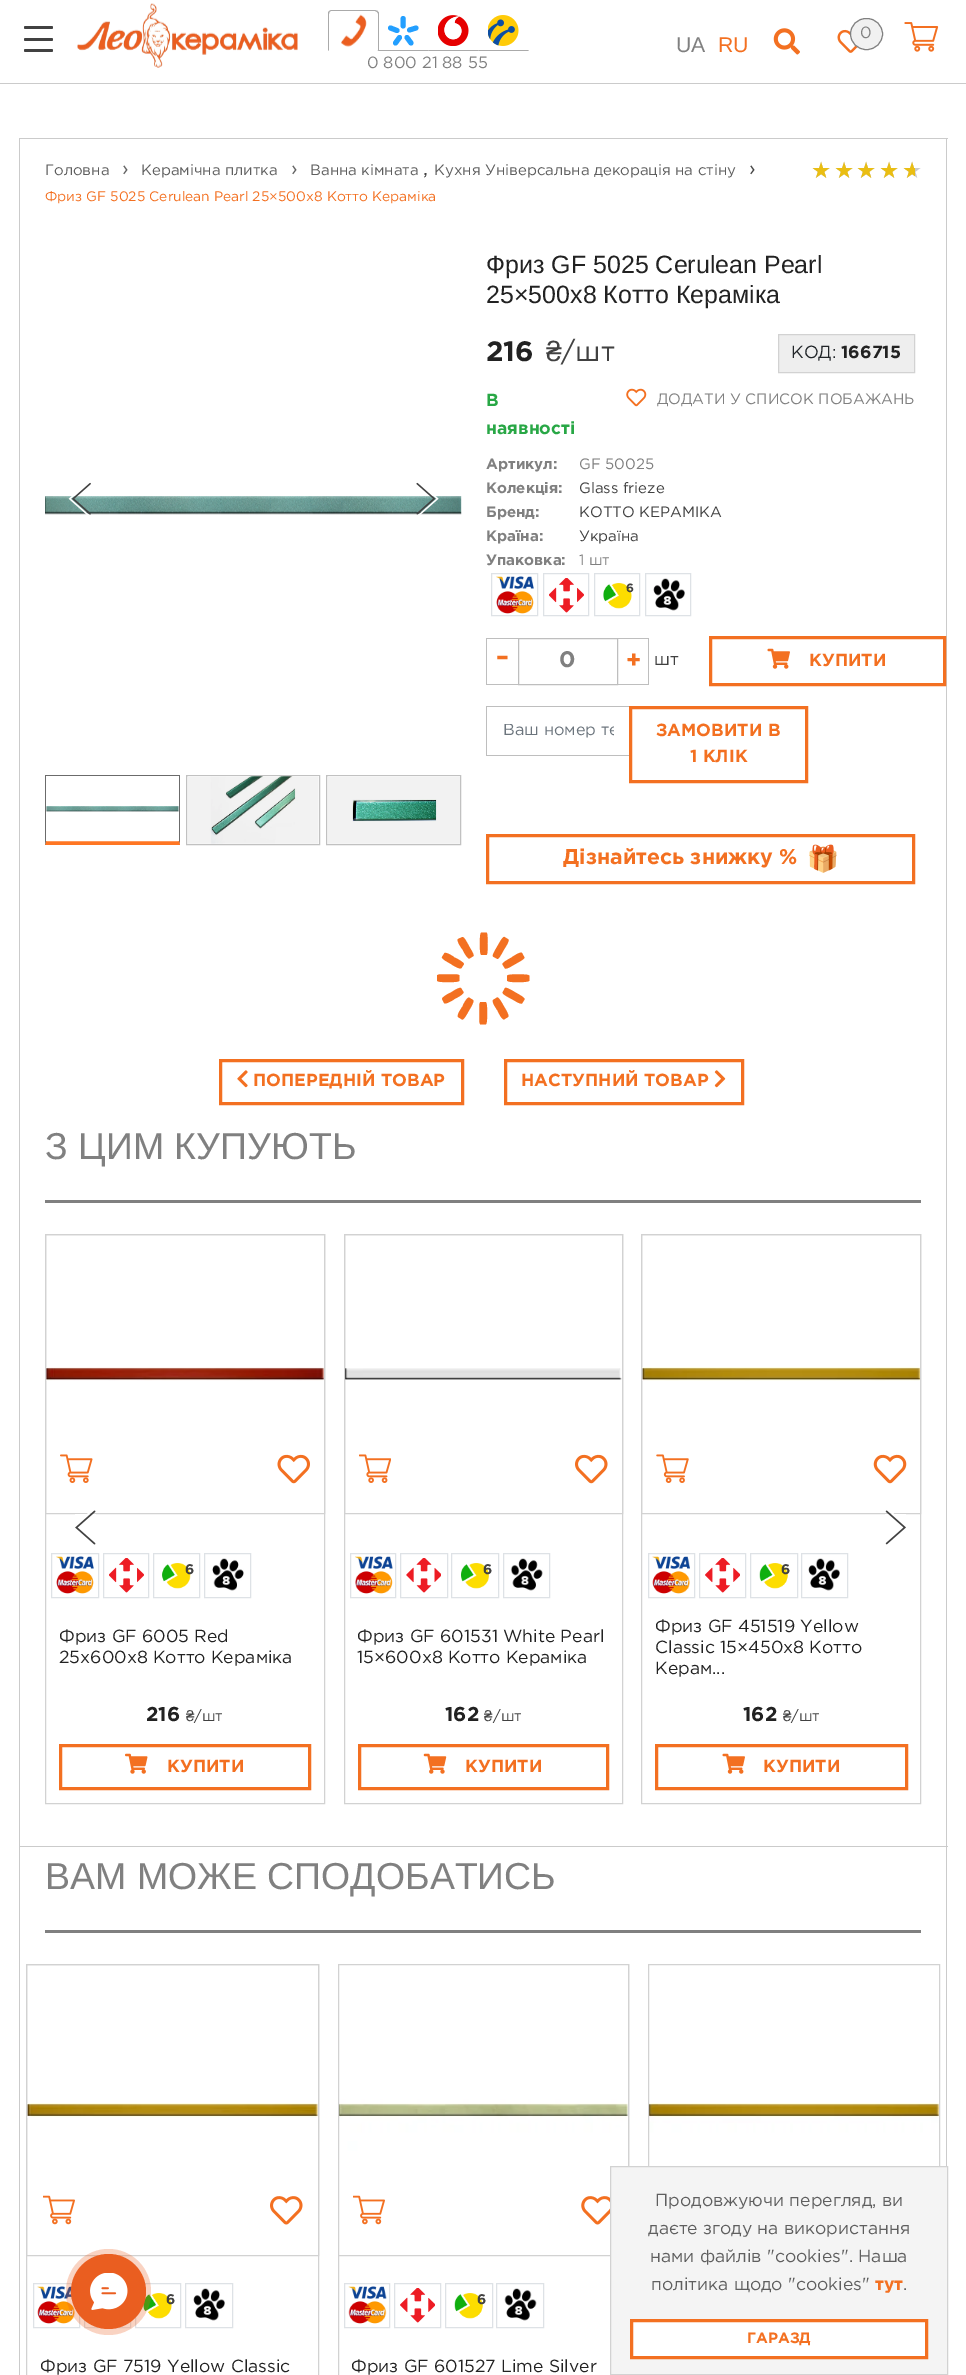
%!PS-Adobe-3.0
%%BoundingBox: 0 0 966 2375
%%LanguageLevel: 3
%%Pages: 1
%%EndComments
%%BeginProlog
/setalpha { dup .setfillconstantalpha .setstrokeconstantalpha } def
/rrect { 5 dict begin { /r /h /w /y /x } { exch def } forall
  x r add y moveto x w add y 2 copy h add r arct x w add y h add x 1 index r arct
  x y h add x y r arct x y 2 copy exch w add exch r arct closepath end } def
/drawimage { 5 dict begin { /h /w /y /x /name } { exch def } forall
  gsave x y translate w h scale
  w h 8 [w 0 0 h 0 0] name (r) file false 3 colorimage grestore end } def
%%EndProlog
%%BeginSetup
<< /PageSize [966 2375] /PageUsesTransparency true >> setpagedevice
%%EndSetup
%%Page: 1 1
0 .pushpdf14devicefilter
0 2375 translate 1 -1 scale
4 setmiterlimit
1 setgray
0 0 966 2375 rectfill
0.796 setgray
0 83 966 1 rectfill
(images/1.raw) 773 28 27 27 drawimage
(images/2.raw) 837 29 21 24 drawimage
0.945 setgray
850.5 18.5 32 31 15.5 rrect gsave fill grestore
0.502 setgray
stroke
(images/3.raw) 904 22 35 30 drawimage
0.255 setgray
24 26 29 3 1.5 rrect fill
24 38 29 3 1.5 rrect fill
24 49 29 3 1.5 rrect fill
(images/4.raw) 77 3 221 65 drawimage
0.667 setgray
newpath 331 10 moveto 329 11 lineto 329 12 lineto 331 11 lineto 375 11 lineto 377 12 lineto 378 11 lineto 375 10 lineto closepath fill
newpath 379 51 moveto 377.5 50 lineto 378 50 lineto 378 13.5 lineto 377 12 lineto 377.5 11 lineto 379 12.5 lineto closepath 329 11 moveto 328 12 328 13 328 14 curveto 328 51 lineto 329 50 lineto 329 14 lineto 329.5 12 lineto closepath fill
(images/5.raw) 341 14 26 33 drawimage
newpath 429 51 moveto 378 51 lineto 379 50 lineto 428 50 lineto closepath fill
0.137 0.624 1 setrgbcolor
5 setlinewidth
1 setlinecap
newpath 403 26 moveto 403 18.5 lineto 407 37.5 moveto 411 43 lineto 395.5 43 moveto 399.5 37.5 lineto 409.5 30 moveto 416 28 lineto 390.5 28 moveto 397 30.5 lineto stroke
0.667 setgray
newpath 479 51 moveto 428 51 lineto 429 50 lineto 478 50 lineto closepath fill
(images/6.raw) 438 15 31 31 drawimage
newpath 529 51 moveto 478 51 lineto 479 50 lineto 528 50 lineto closepath fill
(images/7.raw) 488 15 31 31 drawimage
0.796 setgray
19 138 929 1 rectfill
946 138 1 2028 rectfill
19 138 1 967 rectfill
(images/10.raw) 45 496 417 19 drawimage
(images/8.raw) 68 482 23 33 drawimage
(images/9.raw) 416 482 23 33 drawimage
0.42 setgray
45 775 135 1 rectfill
newpath 180 775 moveto 180 845 lineto 179 841 lineto 179 776 lineto closepath fill
1 0.463 0.137 setrgbcolor
newpath 180 845 moveto 45 845 lineto 46 841 lineto 179 841 lineto closepath fill
0.42 setgray
newpath 45 845 moveto 45 775 lineto 46 776 lineto 46 841 lineto closepath fill
(images/11.raw) 46 806 133 36 drawimage
0.757 setgray
1 setlinewidth
0 setlinecap
186.5 775.5 133 69 rectstroke
(images/12.raw) 188 776 131 68 drawimage
326.5 775.5 134 69 rectstroke
(images/13.raw) 328 776 132 68 drawimage
0.933 setgray
newpath 778.5 334.5 moveto 914.5 334.5 lineto 914.5 372.5 lineto 778.5 372.5 lineto closepath gsave fill grestore
0.824 setgray
stroke
(images/14.raw) 626 388 21 19 drawimage
0.871 0.886 0.902 setrgbcolor
491.5 573.5 46 42 rectstroke
(images/15.raw) 496 576 38 38 drawimage
543.5 573.5 45 42 rectstroke
(images/16.raw) 549 578 35 35 drawimage
594.5 573.5 45 42 rectstroke
(images/17.raw) 603 583 29 26 drawimage
645.5 573.5 45 42 rectstroke
(images/18.raw) 653 578 32 33 drawimage
0.745 setgray
486 638 32 1 rectfill
486 684 32 1 rectfill
486 638 1 47 rectfill
518.5 638.5 99 46 rectstroke
618 638 31 1 rectfill
648 638 1 47 rectfill
618 684 31 1 rectfill
0.953 0.439 0.129 setrgbcolor
3 setlinewidth
710.5 637.5 234 47 rectstroke
(images/19.raw) 767 648 23 21 drawimage
0.745 setgray
486 706 143 1 rectfill
486 755 143 1 rectfill
486 706 1 50 rectfill
0.953 0.439 0.129 setrgbcolor
630.5 707.5 176 74 rectstroke
487.5 835.5 426 47 rectstroke
(images/20.raw) 809 844 28 29 drawimage
newpath 481.5 932.5 moveto 486.5 932.5 lineto 488 934 487.5 942 487.5 944 curveto 487.5 945.5 488 953.5 486.5 955 curveto 481.5 955 lineto 479.5 955 480 944.5 480 944 curveto 480 943 479.5 932.5 481.5 932.5 curveto closepath 504.5 937 moveto 508.5 939.5 lineto 509.5 941.5 504.5 948.5 504 949.5 curveto 503 951 499.5 958.5 497.5 959 curveto 493 956.5 lineto 491.5 955.5 497 947 497.5 946 curveto 498 945.5 502.5 936 504.5 937 curveto closepath fill
newpath 522 953 moveto 524.5 957.5 lineto 524.5 959.5 516.5 963 515.5 964 curveto 514 964.5 507 969.5 505 968.5 curveto 502.5 964.5 lineto 501.5 962.5 511 958 511.5 957.5 curveto 512 957 521 951 522 953 curveto closepath 529.5 976 moveto 529.5 980.5 lineto 528 982.5 519.5 982 518 982 curveto 516.5 982 508 982.5 507 980.5 curveto 507 976 lineto 507 974 517 974.5 518 974.5 curveto 519 974.5 529.5 974 529.5 976 curveto closepath 524.5 999.5 moveto 522 1003.5 lineto 520 1004.5 513 999.5 511.5 999 curveto 510 998 502.5 994.5 502.5 992.5 curveto 505 988 lineto 506 986.5 514.5 992 515.5 992.5 curveto 516 993 525.5 997.5 524.5 999.5 curveto closepath fill
newpath 508 1017 moveto 504 1019.5 lineto 501.5 1019.5 498 1011.5 497.5 1010.5 curveto 496.5 1009 491.5 1002 493 1000 curveto 497 997.5 lineto 499 996.5 503.5 1006 504 1006.5 curveto 504.5 1007.5 510 1016 508 1017 curveto closepath 485.5 1024.5 moveto 480.5 1024.5 lineto 478.5 1023 479.5 1014.5 479.5 1013 curveto 479.5 1011.5 478.5 1003 480.5 1002 curveto 485.5 1002 lineto 487.5 1002 487 1012.5 487 1013 curveto 487 1014 487.5 1024.5 485.5 1024.5 curveto closepath 462 1019.5 moveto 458 1017 lineto 456.5 1015 461.5 1008 462.5 1006.5 curveto 463 1005 466.5 997.5 469 997.5 curveto 473 1000 lineto 475 1001 469.5 1009.5 469 1010.5 curveto 468.5 1011 464 1020.5 462 1019.5 curveto closepath fill
newpath 444 1003 moveto 442 999 lineto 442 997 449.5 993 451 992.5 curveto 452.5 991.5 459 987 461 988 curveto 463.5 992 lineto 464.5 994 455.5 998.5 454.5 999 curveto 454 999.5 445.5 1005 444 1003 curveto closepath 437 980.5 moveto 437 975.5 lineto 438 973.5 446.5 974.5 448 974.5 curveto 449.5 974.5 458 973.5 459.5 975.5 curveto 459.5 980.5 lineto 459 982.5 449 982 448 982 curveto 447.5 982 437 982.5 437 980.5 curveto closepath 442 957 moveto 444.5 953 lineto 446.5 952 453.5 956.5 454.5 957.5 curveto 456 958 463.5 962 464 964 curveto 461.5 968 lineto 460 970 451.5 964.5 451 964 curveto 450.5 963.5 441 959 442 957 curveto closepath fill
newpath 458 939 moveto 462.5 937 lineto 464.5 937 468 944.5 469 946 curveto 469.5 947.5 474.5 954.5 473.5 956 curveto 469.5 958.5 lineto 467.5 959.5 463 950.5 462.5 949.5 curveto 462 949 456 940.5 458 939 curveto closepath fill
220.5 1060.5 242 43 rectstroke
(images/21.raw) 237 1070 11 18 drawimage
505.5 1060.5 237 43 rectstroke
(images/22.raw) 714 1070 12 18 drawimage
0.796 setgray
19 1846 929 1 rectfill
19 1105 1 1270 rectfill
0.502 setgray
45 1200 876 3 rectfill
0.824 setgray
1 setlinewidth
45.5 1234.5 279 569 rectstroke
(images/25.raw) 46 1367 278 14 drawimage
45.5 1234.5 279 279 rectstroke
(images/23.raw) 75 1510 21 35 drawimage
641.5 1234.5 279 569 rectstroke
(images/39.raw) 642 1367 278 14 drawimage
641.5 1234.5 279 279 rectstroke
(images/24.raw) 885 1510 21 35 drawimage
(images/26.raw) 60 1454 33 29 drawimage
(images/27.raw) 277 1454 33 30 drawimage
0.871 0.886 0.902 setrgbcolor
51.5 1553.5 47 44 rectstroke
(images/15.raw) 56 1556 38 38 drawimage
103.5 1553.5 45 44 rectstroke
(images/16.raw) 109 1558 35 35 drawimage
153.5 1553.5 46 44 rectstroke
(images/28.raw) 162 1563 29 26 drawimage
204.5 1553.5 46 44 rectstroke
(images/29.raw) 212 1558 32 33 drawimage
0.953 0.439 0.129 setrgbcolor
3 setlinewidth
60.5 1745.5 249 43 rectstroke
(images/30.raw) 125 1753 23 21 drawimage
0.824 setgray
1 setlinewidth
344.5 1234.5 278 569 rectstroke
(images/31.raw) 345 1368 277 12 drawimage
344.5 1234.5 278 279 rectstroke
(images/32.raw) 359 1454 32 29 drawimage
(images/33.raw) 575 1454 33 30 drawimage
0.871 0.886 0.902 setrgbcolor
350.5 1553.5 45 44 rectstroke
(images/34.raw) 355 1556 38 38 drawimage
400.5 1553.5 47 44 rectstroke
(images/35.raw) 406 1558 35 35 drawimage
451.5 1553.5 47 44 rectstroke
(images/36.raw) 461 1563 28 26 drawimage
503.5 1553.5 46 44 rectstroke
(images/37.raw) 510 1558 33 33 drawimage
0.953 0.439 0.129 setrgbcolor
3 setlinewidth
359.5 1745.5 248 43 rectstroke
(images/38.raw) 423 1753 24 21 drawimage
(images/40.raw) 656 1454 33 29 drawimage
(images/41.raw) 873 1454 34 30 drawimage
0.871 0.886 0.902 setrgbcolor
1 setlinewidth
648.5 1553.5 46 44 rectstroke
(images/42.raw) 652 1556 38 38 drawimage
699.5 1553.5 46 44 rectstroke
(images/43.raw) 705 1558 35 35 drawimage
750.5 1553.5 47 44 rectstroke
(images/44.raw) 759 1563 29 26 drawimage
801.5 1553.5 46 44 rectstroke
(images/45.raw) 808 1558 32 33 drawimage
0.953 0.439 0.129 setrgbcolor
3 setlinewidth
656.5 1745.5 250 43 rectstroke
(images/19.raw) 722 1753 23 21 drawimage
0.502 setgray
45 1930 876 3 rectfill
(images/46.raw) 649 1965 290 201 drawimage
0.824 setgray
1 setlinewidth
648.5 1964.5 291 291 rectstroke
26.5 1964.5 292 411 rectstroke
(images/47.raw) 27 2103 291 15 drawimage
26.5 1964.5 292 291 rectstroke
(images/48.raw) 43 2195 32 30 drawimage
(images/49.raw) 270 2196 33 29 drawimage
0.871 0.886 0.902 setrgbcolor
33.5 2283.5 46 44 rectstroke
(images/50.raw) 37 2286 38 38 drawimage
84.5 2283.5 46 44 rectstroke
135.5 2283.5 45 44 rectstroke
(images/17.raw) 143 2293 29 26 drawimage
185.5 2283.5 47 44 rectstroke
(images/51.raw) 193 2288 32 33 drawimage
0.824 setgray
338.5 1964.5 290 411 rectstroke
(images/52.raw) 339 1965 289 290 drawimage
338.5 1964.5 290 291 rectstroke
(images/48.raw) 353 2195 32 30 drawimage
(images/53.raw) 581 2196 29 29 drawimage
0.871 0.886 0.902 setrgbcolor
344.5 2283.5 45 44 rectstroke
(images/54.raw) 348 2286 39 38 drawimage
394.5 2283.5 46 44 rectstroke
(images/43.raw) 400 2288 35 35 drawimage
445.5 2283.5 47 44 rectstroke
(images/44.raw) 454 2293 29 26 drawimage
496.5 2283.5 47 44 rectstroke
(images/55.raw) 504 2288 33 33 drawimage
0.918 0.369 0.125 setrgbcolor
newpath 108.5 2291.5 37.5 0 360 arc closepath fill
0.15 setalpha
66 2249 85 86 42.5 rrect fill
66 2249 85 86 42.5 rrect fill
1 setalpha
(images/56.raw) 90 2273 38 37 drawimage
0.957 setgray
newpath 610.5 2166.5 moveto 947.5 2166.5 lineto 947.5 2374.5 lineto 610.5 2374.5 lineto closepath gsave fill grestore
0.824 setgray
stroke
1 setgray
newpath 631.5 2320.5 moveto 926.5 2320.5 lineto 926.5 2357.5 lineto 631.5 2357.5 lineto closepath gsave fill grestore
0.953 0.439 0.129 setrgbcolor
3 setlinewidth
stroke
/LiberationSans-Regular [21.25 0 0 -21.25 0 0] selectfont
0.502 setgray
676 52 moveto (UA) show
0.953 0.439 0.129 setrgbcolor
718 52 moveto (RU) show
/Gotham-Regular [16.25 0 0 -16.25 0 0] selectfont
0.502 setgray
860 38 moveto (0) show
367 68 moveto (0 800 21 88 55) show
/Gotham-Regular [15 0 0 -15 0 0] selectfont
0.373 setgray
45 175 moveto (Головна) show
/Gotham-Regular [20 0 0 -20 0 0] selectfont
122 175 moveto (›) show
/Gotham-Regular [15 0 0 -15 0 0] selectfont
141 175 moveto (Керамічна плитка) show
/Gotham-Regular [20 0 0 -20 0 0] selectfont
291 175 moveto (›) show
/Gotham-Regular [15 0 0 -15 0 0] selectfont
310 175 moveto (Ванна кімната) show
/Gotham-Regular [20 0 0 -20 0 0] selectfont
0.255 setgray
423 175 moveto (,) show
/Gotham-Regular [15 0 0 -15 0 0] selectfont
0.373 setgray
434 175 moveto (Кухня Універсальна декорація на стіну) show
/Gotham-Regular [20 0 0 -20 0 0] selectfont
0.255 setgray
749 175 moveto (›) show
/Gotham-Regular [13.75 0 0 -13.75 0 0] selectfont
0.953 0.439 0.129 setrgbcolor
45 201 moveto (Фриз GF 5025 Cerulean Pearl 25×500x8 Котто Кераміка) show
/DejaVuSans-Regular [22.5 0 0 -22.5 0 0] selectfont
0.788 setgray
811 178 moveto 2.5 0 (★★★★★) ashow
gsave
811 158 104 22 rectclip
0.918 0.745 0.071 setrgbcolor
811 178 moveto 2.5 0 (★★★★★) ashow
grestore
/LiberationSans-Regular [25 0 0 -25 0 0] selectfont
0.133 setgray
486 273 moveto (Фриз GF 5025 Cerulean Pearl) show
486 303 moveto (25×500x8 Котто Кераміка) show
/Gotham-Bold [28 0 0 -28 0 0] selectfont
486 361 moveto (216) show
/LiberationSans-Regular [28 0 0 -28 0 0] selectfont
0.255 setgray
546 361 moveto (₴) show
/Gotham-Regular [28 0 0 -28 0 0] selectfont
561 361 moveto (/шт) show
/Gotham-Regular [17.5 0 0 -17.5 0 0] selectfont
0.129 0.145 0.161 setrgbcolor
791 358 moveto (КОД:) show
/Gotham-Bold [17.5 0 0 -17.5 0 0] selectfont
0.133 setgray
841 358 moveto (166715) show
0.157 0.655 0.271 setrgbcolor
486 406 moveto (В) show
486 434 moveto (наявності) show
/Gotham-Regular [15 0 0 -15 0 0] selectfont
0.502 setgray
657 404 moveto (ДОДАТИ У СПИСОК ПОБАЖАНЬ) show
/Gotham-Bold [15 0 0 -15 0 0] selectfont
486 469 moveto (Артикул:) show
/Gotham-Regular [15 0 0 -15 0 0] selectfont
579 469 moveto (GF 50025) show
/Gotham-Bold [15 0 0 -15 0 0] selectfont
486 493 moveto (Колекція:) show
/Gotham-Regular [15 0 0 -15 0 0] selectfont
0.255 setgray
579 493 moveto (Glass frieze) show
/Gotham-Bold [15 0 0 -15 0 0] selectfont
0.502 setgray
486 517 moveto (Бренд:) show
/Gotham-Regular [15 0 0 -15 0 0] selectfont
0.255 setgray
579 517 moveto (КОТТО КЕРАМІКА) show
/Gotham-Bold [15 0 0 -15 0 0] selectfont
0.502 setgray
486 541 moveto (Країна:) show
/Gotham-Regular [15 0 0 -15 0 0] selectfont
0.255 setgray
579 541 moveto (Україна) show
/Gotham-Bold [15 0 0 -15 0 0] selectfont
0.502 setgray
486 565 moveto (Упаковка:) show
/Gotham-Regular [15 0 0 -15 0 0] selectfont
579 565 moveto (1 шт) show
/Gotham-Bold [12 0 0 -12 0 0] selectfont
0.255 setgray
626 592 moveto (6) show
/Gotham-Bold [24 0 0 -24 0 0] selectfont
0.953 0.439 0.129 setrgbcolor
496 665 moveto (–) show
/Gotham-Bold [22.5 0 0 -22.5 0 0] selectfont
0.502 setgray
559 667 moveto (0) show
/Gotham-Bold [24 0 0 -24 0 0] selectfont
0.953 0.439 0.129 setrgbcolor
626 668 moveto (+) show
/Gotham-Regular [17.5 0 0 -17.5 0 0] selectfont
0.255 setgray
654 665 moveto (шт) show
/Gotham-Bold [17.5 0 0 -17.5 0 0] selectfont
0.953 0.439 0.129 setrgbcolor
809 666 moveto (КУПИТИ) show
gsave
503 724 111 15 rectclip
/Gotham-Regular [16.25 0 0 -16.25 0 0] selectfont
0.424 0.459 0.49 setrgbcolor
503 735 moveto (Ваш номер те) show
grestore
656 736 moveto (ЗАМОВИТИ В) show
690 762 moveto (1 КЛІК) show
/Gotham-Bold [21.25 0 0 -21.25 0 0] selectfont
563 864 moveto (Дізнайтесь знижку %) show
/Gotham-Bold [17.5 0 0 -17.5 0 0] selectfont
253 1086 moveto (ПОПЕРЕДНІЙ ТОВАР) show
521 1086 moveto (НАСТУПНИЙ ТОВАР) show
/LiberationSans-Regular [37.5 0 0 -37.5 0 0] selectfont
0.502 setgray
45 1159 moveto (З ЦИМ КУПУЮТЬ) show
/Gotham-Bold [14 0 0 -14 0 0] selectfont
0.255 setgray
185 1574 moveto (6) show
/Gotham-Regular [17.5 0 0 -17.5 0 0] selectfont
0.133 setgray
59 1642 moveto (Фриз GF 6005 Red) show
59 1663 moveto (25x600x8 Котто Кераміка) show
/Gotham-Bold [20 0 0 -20 0 0] selectfont
146 1721 moveto (216) show
/LiberationSans-Regular [15 0 0 -15 0 0] selectfont
0.255 setgray
186 1721 moveto (₴) show
/Gotham-Regular [15 0 0 -15 0 0] selectfont
194 1721 moveto (/шт) show
/Gotham-Bold [17.5 0 0 -17.5 0 0] selectfont
0.953 0.439 0.129 setrgbcolor
167 1772 moveto (КУПИТИ) show
/Gotham-Bold [14 0 0 -14 0 0] selectfont
0.255 setgray
483 1574 moveto (6) show
/Gotham-Regular [17.5 0 0 -17.5 0 0] selectfont
0.133 setgray
357 1642 moveto (Фриз GF 601531 White Pearl) show
357 1663 moveto (15×600x8 Котто Кераміка) show
/Gotham-Bold [20 0 0 -20 0 0] selectfont
445 1721 moveto (162) show
/LiberationSans-Regular [15 0 0 -15 0 0] selectfont
0.255 setgray
484 1721 moveto (₴) show
/Gotham-Regular [15 0 0 -15 0 0] selectfont
493 1721 moveto (/шт) show
/Gotham-Bold [17.5 0 0 -17.5 0 0] selectfont
0.953 0.439 0.129 setrgbcolor
465 1772 moveto (КУПИТИ) show
/Gotham-Bold [14 0 0 -14 0 0] selectfont
0.255 setgray
781 1574 moveto (6) show
/Gotham-Regular [17.5 0 0 -17.5 0 0] selectfont
0.133 setgray
655 1632 moveto (Фриз GF 451519 Yellow) show
655 1653 moveto (Classic 15×450x8 Котто) show
655 1674 moveto (Керам...) show
/Gotham-Bold [20 0 0 -20 0 0] selectfont
743 1721 moveto (162) show
/LiberationSans-Regular [15 0 0 -15 0 0] selectfont
0.255 setgray
783 1721 moveto (₴) show
/Gotham-Regular [15 0 0 -15 0 0] selectfont
791 1721 moveto (/шт) show
/Gotham-Bold [17.5 0 0 -17.5 0 0] selectfont
0.953 0.439 0.129 setrgbcolor
763 1772 moveto (КУПИТИ) show
/LiberationSans-Regular [37.5 0 0 -37.5 0 0] selectfont
0.502 setgray
45 1889 moveto (ВАМ МОЖЕ СПОДОБАТИСЬ) show
/Gotham-Bold [14 0 0 -14 0 0] selectfont
0.255 setgray
166 2304 moveto (6) show
/Gotham-Regular [17.5 0 0 -17.5 0 0] selectfont
0.133 setgray
40 2372 moveto (Фриз GF 7519 Yellow Classic) show
/Gotham-Bold [14 0 0 -14 0 0] selectfont
0.255 setgray
477 2304 moveto (6) show
/Gotham-Regular [17.5 0 0 -17.5 0 0] selectfont
0.133 setgray
351 2372 moveto (Фриз GF 601527 Lime Silver) show
0.373 setgray
655 2206 moveto (Продовжуючи перегляд, ви) show
648 2234 moveto (даєте згоду на використання) show
650 2262 moveto (нами файлів "cookies". Наша) show
651 2290 moveto (політика щодо "cookies") show
/Gotham-Bold [17.5 0 0 -17.5 0 0] selectfont
0.953 0.439 0.129 setrgbcolor
875 2290 moveto (тут) show
/Gotham-Regular [17.5 0 0 -17.5 0 0] selectfont
0.373 setgray
903 2290 moveto (.) show
/Gotham-Bold [15 0 0 -15 0 0] selectfont
0.953 0.439 0.129 setrgbcolor
747 2343 moveto (ГАРАЗД) show
.poppdf14devicefilter showpage
%%EOF
